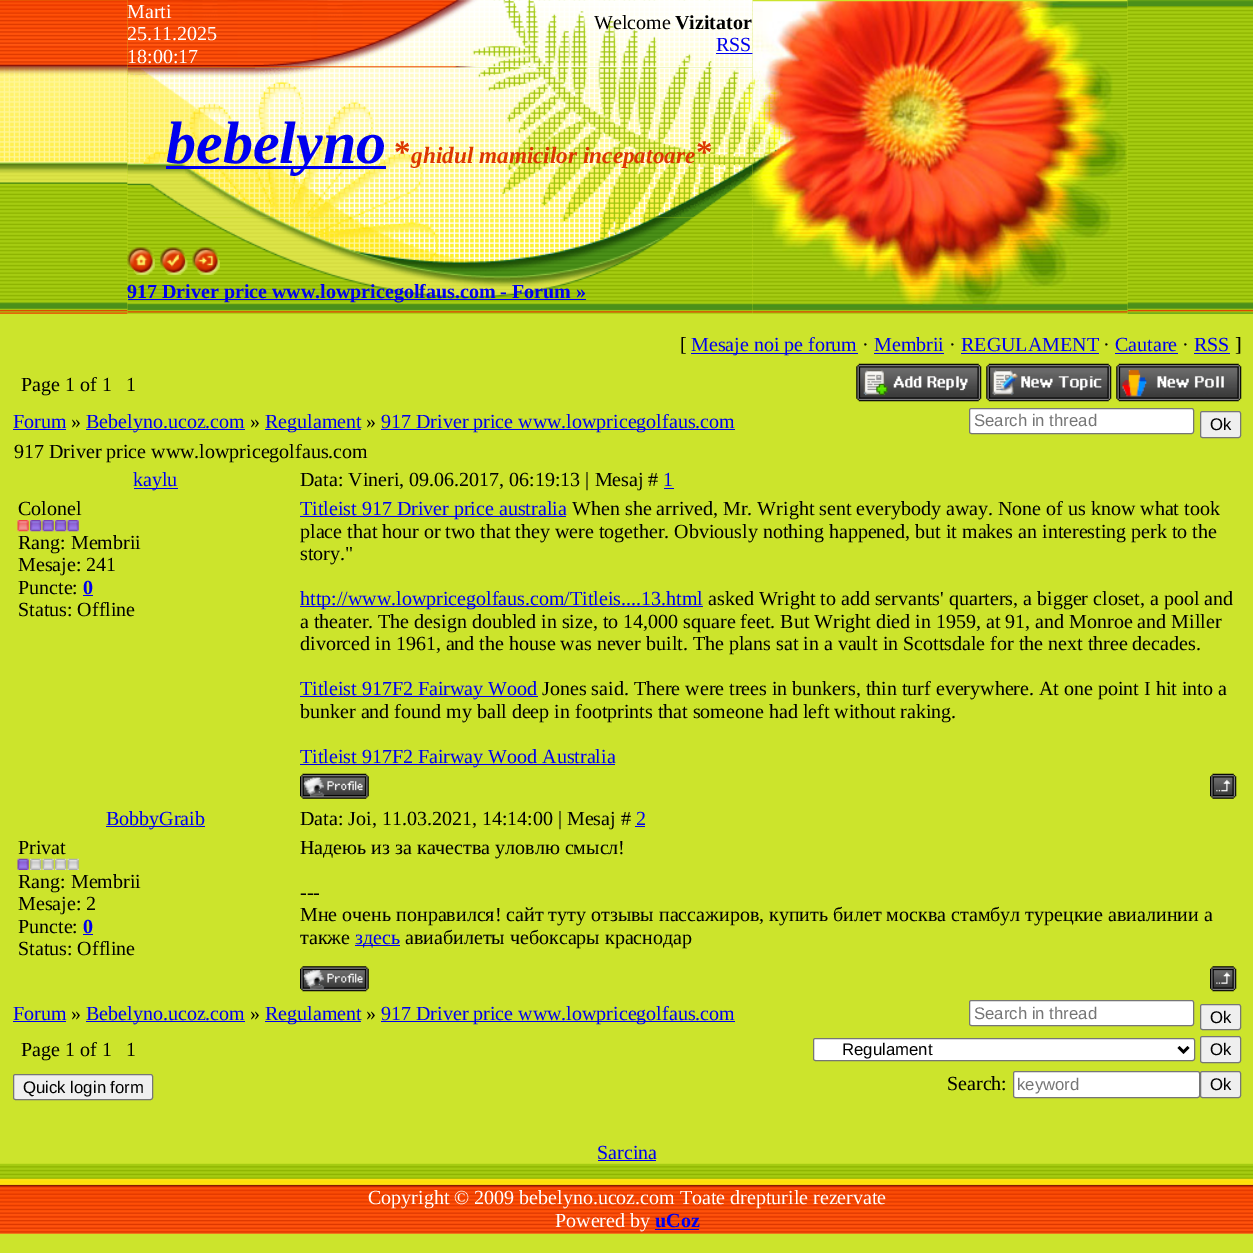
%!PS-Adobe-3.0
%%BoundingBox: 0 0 1253 1253
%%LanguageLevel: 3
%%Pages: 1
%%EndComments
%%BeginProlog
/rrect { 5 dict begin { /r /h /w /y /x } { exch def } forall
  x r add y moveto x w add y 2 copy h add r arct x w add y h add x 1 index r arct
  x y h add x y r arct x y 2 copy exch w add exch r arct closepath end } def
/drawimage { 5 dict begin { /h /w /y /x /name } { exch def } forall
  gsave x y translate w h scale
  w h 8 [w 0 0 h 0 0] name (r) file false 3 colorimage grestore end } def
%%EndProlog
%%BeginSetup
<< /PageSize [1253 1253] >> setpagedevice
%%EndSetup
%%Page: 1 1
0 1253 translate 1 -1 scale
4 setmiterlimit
0.8 0.894 0.173 setrgbcolor
0 0 1253 1253 rectfill
(images/1.raw) 0 2 1253 312 drawimage
(images/2.raw) 0 0 128 314 drawimage
(images/3.raw) 127 0 626 68 drawimage
0 0 0.933 setrgbcolor
716 53 37 1 rectfill
(images/5.raw) 1127 0 126 314 drawimage
(images/6.raw) 127 67 626 151 drawimage
(images/7.raw) 127 217 626 97 drawimage
(images/4.raw) 752 1 376 313 drawimage
166 166 220 3 rectfill
(images/8.raw) 127 247 28 28 drawimage
(images/9.raw) 160 247 28 28 drawimage
(images/10.raw) 192 247 28 28 drawimage
128 299 458 1 rectfill
691 353 167 1 rectfill
874 353 70 1 rectfill
961 353 138 1 rectfill
1115 353 63 1 rectfill
1194 353 36 1 rectfill
(images/11.raw) 856 363 126 39 drawimage
(images/12.raw) 986 363 126 39 drawimage
(images/13.raw) 1116 363 126 39 drawimage
13 429 53 1 rectfill
86 429 159 1 rectfill
265 429 96 1 rectfill
381 429 354 1 rectfill
1 setgray
969.5 408.5 224 25 2 rrect gsave fill grestore
0.463 setgray
stroke
0.937 setgray
1200.5 411.5 40 26 2 rrect gsave fill grestore
0.463 setgray
stroke
0 0 0.933 setrgbcolor
134 488 44 1 rectfill
664 488 10 1 rectfill
(images/14.raw) 17 520 62 12 drawimage
83 595 10 1 rectfill
300 516 266 1 rectfill
300 606 403 1 rectfill
300 696 238 1 rectfill
300 764 315 1 rectfill
(images/15.raw) 300 773 69 26 drawimage
(images/16.raw) 1210 773 27 26 drawimage
106 826 99 1 rectfill
635 826 10 1 rectfill
(images/17.raw) 17 858 62 12 drawimage
83 934 10 1 rectfill
355 945 45 1 rectfill
(images/18.raw) 300 966 69 26 drawimage
(images/19.raw) 1210 966 27 26 drawimage
13 1021 53 1 rectfill
86 1021 159 1 rectfill
265 1021 96 1 rectfill
381 1021 354 1 rectfill
1 setgray
969.5 1000.5 224 25 2 rrect gsave fill grestore
0.463 setgray
stroke
0.937 setgray
1200.5 1004.5 40 25 2 rrect gsave fill grestore
0.463 setgray
stroke
1 setgray
813.5 1038.5 381 22 2 rrect gsave fill grestore
0.463 setgray
stroke
0 setgray
2.5 setlinewidth
newpath 1178.5 1047 moveto 1183.5 1052 lineto 1188.5 1047 lineto stroke
0.937 setgray
1200.5 1036.5 40 26 2 rrect gsave fill grestore
0.463 setgray
1 setlinewidth
stroke
0.937 setgray
13.5 1074.5 139 25 2 rrect gsave fill grestore
0.463 setgray
stroke
1 setgray
1013.5 1071.5 186 26 2 rrect gsave fill grestore
0.463 setgray
stroke
0.937 setgray
1200.5 1071.5 40 26 2 rrect gsave fill grestore
0.463 setgray
stroke
0 0 0.933 setrgbcolor
598 1160 58 1 rectfill
(images/20.raw) 0 1163 1253 71 drawimage
655 1229 44 1 rectfill
/LiberationSerif-Regular [20 0 0 -20 0 0] selectfont
1 setgray
127 18 moveto (Marti) show
127 40 moveto (25.11.2025) show
127 63 moveto (18:00:17) show
0 setgray
594 29 moveto (Welcome) show
/LiberationSerif-Bold [20 0 0 -20 0 0] selectfont
675 29 moveto (Vizitator) show
/LiberationSerif-Regular [20 0 0 -20 0 0] selectfont
0 0 0.933 setrgbcolor
716 51 moveto (RSS) show
/LiberationSerif-BoldItalic [60 0 0 -60 0 0] selectfont
166 163 moveto (bebelyno) show
/LiberationSerif-Bold [33 0 0 -33 0 0] selectfont
0.863 0.216 0 setrgbcolor
394 163 moveto (*) show
/LiberationSerif-BoldItalic [23.25 0 0 -23.25 0 0] selectfont
411 163 moveto (ghidul mamicilor incepatoare) show
/LiberationSerif-Bold [33 0 0 -33 0 0] selectfont
696 163 moveto (*) show
/LiberationSerif-Bold [20 0 0 -20 0 0] selectfont
0 0 0.933 setrgbcolor
127 298 moveto (917 Driver price www.lowpricegolfaus.com - Forum ») show
/LiberationSerif-Regular [20 0 0 -20 0 0] selectfont
0 setgray
680 351 moveto ([) show
0 0 0.933 setrgbcolor
691 351 moveto (Mesaje noi pe forum) show
0 setgray
862 351 moveto (·) show
0 0 0.933 setrgbcolor
874 351 moveto (Membrii) show
0 setgray
949 351 moveto (·) show
0 0 0.933 setrgbcolor
961 351 moveto (REGULAMENT) show
0 setgray
1103 351 moveto (·) show
0 0 0.933 setrgbcolor
1115 351 moveto (Cautare) show
0 setgray
1182 351 moveto (·) show
0 0 0.933 setrgbcolor
1194 351 moveto (RSS) show
0 setgray
1235 351 moveto (]) show
21 391 moveto (Page 1 of 1) show
126 391 moveto (1) show
0 0 0.933 setrgbcolor
13 428 moveto (Forum) show
0 setgray
71 428 moveto (») show
0 0 0.933 setrgbcolor
86 428 moveto (Bebelyno.ucoz.com) show
0 setgray
250 428 moveto (») show
0 0 0.933 setrgbcolor
265 428 moveto (Regulament) show
0 setgray
366 428 moveto (») show
0 0 0.933 setrgbcolor
381 428 moveto (917 Driver price www.lowpricegolfaus.com) show
/LiberationSans-Regular [16.75 0 0 -16.75 0 0] selectfont
0.459 setgray
974 426 moveto (Search in thread) show
0 setgray
1210 430 moveto (Ok) show
/LiberationSerif-Regular [20 0 0 -20 0 0] selectfont
14 458 moveto (917 Driver price www.lowpricegolfaus.com) show
0 0 0.933 setrgbcolor
133 486 moveto (kaylu) show
0 setgray
300 486 moveto (Data: Vineri, 09.06.2017, 06:19:13 | Mesaj #) show
0 0 0.933 setrgbcolor
663 486 moveto (1) show
0 setgray
18 515 moveto (Colonel) show
18 549 moveto (Rang: Membrii) show
18 571 moveto (Mesaje: 241) show
18 594 moveto (Puncte:) show
/LiberationSerif-Bold [20 0 0 -20 0 0] selectfont
0 0 0.933 setrgbcolor
83 594 moveto (0) show
/LiberationSerif-Regular [20 0 0 -20 0 0] selectfont
0 setgray
18 616 moveto (Status: Offline) show
0 0 0.933 setrgbcolor
300 515 moveto (Titleist 917 Driver price australia) show
0 setgray
572 515 moveto (When she arrived, Mr. Wright sent everybody away. None of us know what took) show
300 538 moveto (place that hour or two that they were together. Obviously nothing happened, but it makes an interesting perk to the) show
300 560 moveto (story.") show
0 0 0.933 setrgbcolor
300 605 moveto (http://www.lowpricegolfaus.com/Titleis....13.html) show
0 setgray
708 605 moveto (asked Wright to add servants' quarters, a bigger closet, a pool and) show
300 628 moveto (a theater. The design doubled in size, to 14,000 square feet. But Wright died in 1959, at 91, and Monroe and Miller) show
300 650 moveto (divorced in 1961, and the house was never built. The plans sat in a vault in Scottsdale for the next three decades.) show
0 0 0.933 setrgbcolor
300 695 moveto (Titleist 917F2 Fairway Wood) show
0 setgray
542 695 moveto (Jones said. There were trees in bunkers, thin turf everywhere. At one point I hit into a) show
300 718 moveto (bunker and found my ball deep in footprints that someone had left without raking.) show
0 0 0.933 setrgbcolor
300 763 moveto (Titleist 917F2 Fairway Wood Australia) show
106 825 moveto (BobbyGraib) show
0 setgray
300 825 moveto (Data: Joi, 11.03.2021, 14:14:00 | Mesaj #) show
0 0 0.933 setrgbcolor
636 825 moveto (2) show
0 setgray
18 854 moveto (Privat) show
18 888 moveto (Rang: Membrii) show
18 910 moveto (Mesaje: 2) show
18 933 moveto (Puncte:) show
/LiberationSerif-Bold [20 0 0 -20 0 0] selectfont
0 0 0.933 setrgbcolor
83 933 moveto (0) show
/LiberationSerif-Regular [20 0 0 -20 0 0] selectfont
0 setgray
18 955 moveto (Status: Offline) show
300 854 moveto (Надеюь из за качества уловлю смысл!) show
300 899 moveto (---) show
300 921 moveto (Мне очень понравился! сайт туту отзывы пассажиров, купить билет москва стамбул турецкие авиалинии а) show
300 944 moveto (также) show
0 0 0.933 setrgbcolor
355 944 moveto (здесь) show
0 setgray
405 944 moveto (авиабилеты чебоксары краснодар) show
0 0 0.933 setrgbcolor
13 1020 moveto (Forum) show
0 setgray
71 1020 moveto (») show
0 0 0.933 setrgbcolor
86 1020 moveto (Bebelyno.ucoz.com) show
0 setgray
250 1020 moveto (») show
0 0 0.933 setrgbcolor
265 1020 moveto (Regulament) show
0 setgray
366 1020 moveto (») show
0 0 0.933 setrgbcolor
381 1020 moveto (917 Driver price www.lowpricegolfaus.com) show
/LiberationSans-Regular [16.75 0 0 -16.75 0 0] selectfont
0.459 setgray
974 1019 moveto (Search in thread) show
0 setgray
1210 1023 moveto (Ok) show
/LiberationSerif-Regular [20 0 0 -20 0 0] selectfont
21 1056 moveto (Page 1 of 1) show
126 1056 moveto (1) show
/LiberationSans-Regular [16.75 0 0 -16.75 0 0] selectfont
842 1055 moveto (Regulament) show
1210 1055 moveto (Ok) show
23 1093 moveto (Quick login form) show
/LiberationSerif-Regular [20 0 0 -20 0 0] selectfont
947 1090 moveto (Search:) show
/LiberationSans-Regular [16.75 0 0 -16.75 0 0] selectfont
0.459 setgray
1017 1090 moveto (keyword) show
0 setgray
1210 1090 moveto (Ok) show
/LiberationSerif-Regular [20 0 0 -20 0 0] selectfont
0 0 0.933 setrgbcolor
597 1159 moveto (Sarcina) show
1 setgray
368 1204 moveto (Copyright © 2009 bebelyno.ucoz.com Toate drepturile rezervate) show
555 1227 moveto (Powered by) show
/LiberationSerif-Bold [20 0 0 -20 0 0] selectfont
0 0 0.933 setrgbcolor
655 1227 moveto (uCoz) show
showpage
%%EOF
